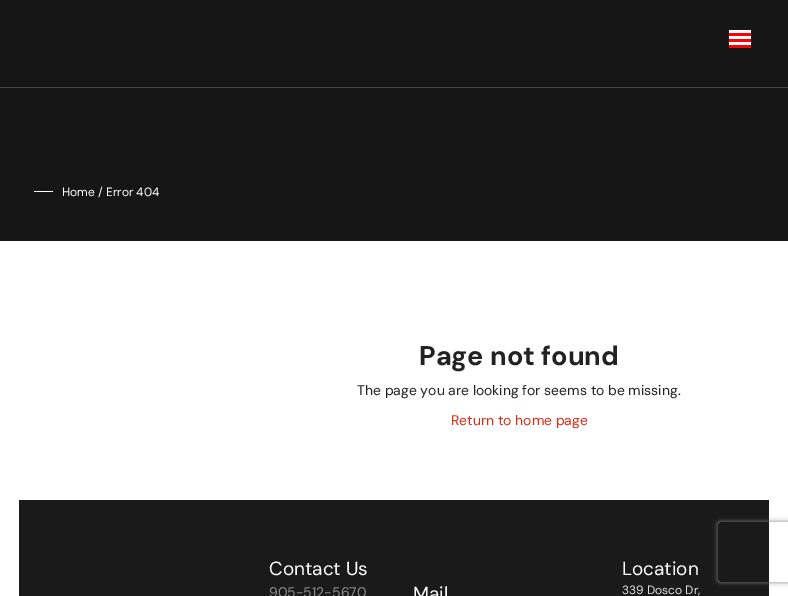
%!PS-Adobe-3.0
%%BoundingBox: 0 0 788 596
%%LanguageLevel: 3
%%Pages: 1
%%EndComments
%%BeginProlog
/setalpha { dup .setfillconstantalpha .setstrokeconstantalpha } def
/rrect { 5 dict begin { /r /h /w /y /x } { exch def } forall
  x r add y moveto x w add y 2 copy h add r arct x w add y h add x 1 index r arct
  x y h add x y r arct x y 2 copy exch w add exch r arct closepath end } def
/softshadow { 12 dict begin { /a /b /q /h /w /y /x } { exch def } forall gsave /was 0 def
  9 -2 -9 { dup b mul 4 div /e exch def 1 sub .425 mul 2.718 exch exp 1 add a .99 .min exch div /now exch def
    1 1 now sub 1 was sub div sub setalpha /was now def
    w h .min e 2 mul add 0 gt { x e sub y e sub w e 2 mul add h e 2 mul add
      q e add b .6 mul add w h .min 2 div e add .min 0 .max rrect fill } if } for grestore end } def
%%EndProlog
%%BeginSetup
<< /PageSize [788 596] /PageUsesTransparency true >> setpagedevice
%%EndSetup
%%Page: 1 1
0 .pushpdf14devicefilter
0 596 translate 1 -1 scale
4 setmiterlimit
1 setgray
0 0 788 596 rectfill
0.086 setgray
0 0 788 241 rectfill
0.271 setgray
0 87 788 1 rectfill
1 0 0 setrgbcolor
729 33 22 15 rectfill
1 setgray
729 30 22 3 rectfill
729 36 22 3 rectfill
729 42 22 3 rectfill
34 191 19 1 rectfill
0.102 setgray
19 500 750 96 rectfill
gsave
newpath 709 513 moveto 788 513 lineto 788 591 lineto 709 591 lineto closepath 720 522 moveto 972 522 lineto 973 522 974 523 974 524 curveto 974 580 lineto 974 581 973 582 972 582 curveto 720 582 lineto 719 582 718 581 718 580 curveto 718 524 lineto 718 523 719 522 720 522 curveto closepath eoclip newpath
0.502 setgray
718 522 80 60 2 2.5 1 softshadow
grestore
/DMSans-Regular [12 0 0 -12 0 0] selectfont
1 setgray
62 196 moveto (Home / Error 404) show
/DMSans-Bold [27 0 0 -27 0 0] selectfont
0.133 setgray
419 365 moveto (Page not found) show
/DMSans-Regular [14 0 0 -14 0 0] selectfont
357 395 moveto (The page you are looking for seems to be missing.) show
0.863 0.176 0.075 setrgbcolor
451 425 moveto (Return to home page) show
/DMSans-Regular [19 0 0 -19 0 0] selectfont
1 setgray
269 575 moveto (Contact Us) show
/DMSans-Regular [14 0 0 -14 0 0] selectfont
0.557 setgray
269 597 moveto (905-512-5670) show
/DMSans-Regular [19 0 0 -19 0 0] selectfont
1 setgray
413 600 moveto (Mail) show
622 575 moveto (Location) show
/DMSans-Regular [12 0 0 -12 0 0] selectfont
0.878 setgray
622 594 moveto (339 Dosco Dr,) show
.poppdf14devicefilter showpage
%%EOF
